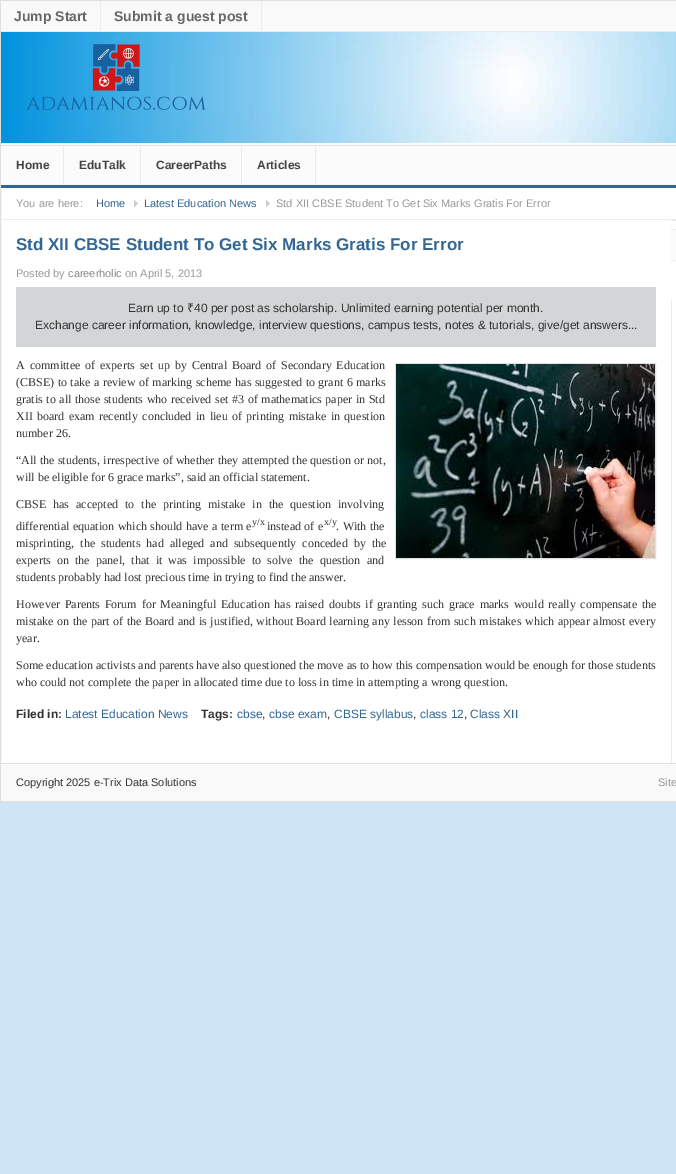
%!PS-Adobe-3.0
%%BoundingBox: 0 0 676 1174
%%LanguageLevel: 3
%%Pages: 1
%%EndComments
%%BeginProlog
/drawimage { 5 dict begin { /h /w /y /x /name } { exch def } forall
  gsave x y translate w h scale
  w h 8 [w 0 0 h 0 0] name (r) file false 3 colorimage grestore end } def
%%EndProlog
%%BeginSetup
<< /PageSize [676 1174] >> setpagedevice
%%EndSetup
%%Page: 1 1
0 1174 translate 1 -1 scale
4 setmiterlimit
0.812 0.894 0.957 setrgbcolor
0 0 676 1174 rectfill
1 setgray
1 143 675 620 rectfill
0.875 setgray
0.5 0.5 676 801 rectstroke
0.976 setgray
1 1 675 30 rectfill
0.925 0.929 0.91 setrgbcolor
1 31 675 1 rectfill
100 1 1 30 rectfill
261 1 1 30 rectfill
(images/1.raw) 1 32 675 111 drawimage
(images/2.raw) 26 44 180 66 drawimage
0.984 setgray
1 146 675 38 rectfill
0.965 setgray
1 184 675 1 rectfill
0.878 setgray
1 145 675 1 rectfill
0.196 0.4 0.576 setrgbcolor
1 185 675 3 rectfill
0.922 setgray
63 146 1 39 rectfill
140 146 1 39 rectfill
241 146 1 39 rectfill
315 146 1 39 rectfill
(images/3.raw) 134 200 4 7 drawimage
(images/3.raw) 266 200 4 7 drawimage
0.925 0.929 0.91 setrgbcolor
671 299 1 464 rectfill
1 219 675 1 rectfill
0.831 0.835 0.843 setrgbcolor
16 287 640 60 rectfill
0.878 setgray
395.5 363.5 260 195 rectstroke
(images/4.raw) 396 364 259 194 drawimage
0.925 0.929 0.91 setrgbcolor
671 220 5 1 rectfill
0.984 setgray
671 229 5 32 rectfill
0.925 0.929 0.91 setrgbcolor
671 229 5 1 rectfill
671 260 5 1 rectfill
0.976 setgray
1 764 675 37 rectfill
0.878 setgray
1 763 675 1 rectfill
/LiberationSans-Bold [14 0 0 -14 0 0] selectfont
0.4 setgray
14 21 moveto (Jump Start) show
114 21 moveto (Submit a guest post) show
/LiberationSans-Bold [12 0 0 -12 0 0] selectfont
0.267 setgray
16 169 moveto (Home) show
79 169 moveto (EduTalk) show
156 169 moveto (CareerPaths) show
257 169 moveto (Articles) show
/LiberationSans-Regular [11 0 0 -11 0 0] selectfont
0.6 setgray
16 207 moveto (You are here:) show
0.196 0.4 0.576 setrgbcolor
96 207 moveto (Home) show
144 207 moveto (Latest Education News) show
0.6 setgray
276 207 moveto (Std XII CBSE Student To Get Six Marks Gratis For Error) show
/LiberationSans-Bold [17 0 0 -17 0 0] selectfont
0.196 0.4 0.576 setrgbcolor
16 250 moveto (Std XII CBSE Student To Get Six Marks Gratis For Error) show
/LiberationSans-Regular [11 0 0 -11 0 0] selectfont
0.6 setgray
16 277 moveto (Posted by) show
0.533 setgray
68 277 moveto (careerholic) show
0.6 setgray
125 277 moveto (on April 5, 2013) show
/LiberationSans-Regular [12 0 0 -12 0 0] selectfont
0.2 setgray
128 312 moveto (Earn up to) show
/NotoSans-Regular [12 0 0 -12 0 0] selectfont
187 312 moveto (₹) show
/LiberationSans-Regular [12 0 0 -12 0 0] selectfont
194 312 moveto (40 per post as scholarship. Unlimited earning potential per month.) show
35 329 moveto (Exchange career information, knowledge, interview questions, campus tests, notes & tutorials, give/get answers...) show
/LiberationSerif-Regular [12 0 0 -12 0 0] selectfont
16 369 moveto 1.9 0 32 (A committee of experts set up by Central Board of Secondary Education) widthshow
16 386 moveto 0.5 0 32 (\(CBSE\) to take a review of marking scheme has suggested to grant 6 marks) widthshow
16 403 moveto 0.6 0 32 (gratis to all those students who received set #3 of mathematics paper in Std) widthshow
16 420 moveto 1.4 0 32 (XII board exam recently concluded in lieu of printing mistake in question) widthshow
16 437 moveto (number 26.) show
16 464 moveto 0.25 0 32 (“All the students, irrespective of whether they attempted the question or not,) widthshow
16 481 moveto (will be eligible for 6 grace marks”, said an official statement.) show
16 508 moveto 4 0 32 (CBSE has accepted to the printing mistake in the question involving) widthshow
16 530 moveto 0.5 0 32 (differential equation which should have a term e) widthshow
/LiberationSerif-Regular [10 0 0 -10 0 0] selectfont
252 525 moveto (y/x) show
/LiberationSerif-Regular [12 0 0 -12 0 0] selectfont
267 530 moveto 0.5 0 32 (instead of e) widthshow
/LiberationSerif-Regular [10 0 0 -10 0 0] selectfont
324 525 moveto (x/y) show
/LiberationSerif-Regular [12 0 0 -12 0 0] selectfont
336 530 moveto 0.5 0 32 (. With the) widthshow
16 547 moveto 3 0 32 (misprinting, the students had alleged and subsequently conceded by the) widthshow
16 564 moveto 3.25 0 32 (experts on the panel, that it was impossible to solve the question and) widthshow
16 581 moveto (students probably had lost precious time in trying to find the answer.) show
16 608 moveto 1.75 0 32 (However Parents Forum for Meaningful Education has raised doubts if granting such grace marks would really compensate the) widthshow
16 625 moveto 0.6 0 32 (mistake on the part of the Board and is justified, without Board learning any lesson from such mistakes which appear almost every) widthshow
16 642 moveto (year.) show
16 669 moveto (Some education activists and parents have also questioned the move as to how this compensation would be enough for those students) show
16 686 moveto (who could not complete the paper in allocated time due to loss in time in attempting a wrong question.) show
/LiberationSans-Bold [12 0 0 -12 0 0] selectfont
16 718 moveto (Filed in:) show
/LiberationSans-Regular [12 0 0 -12 0 0] selectfont
0.196 0.4 0.576 setrgbcolor
65 718 moveto (Latest Education News) show
/LiberationSans-Bold [12 0 0 -12 0 0] selectfont
0.2 setgray
201 718 moveto (Tags:) show
/LiberationSans-Regular [12 0 0 -12 0 0] selectfont
0.196 0.4 0.576 setrgbcolor
237 718 moveto (cbse) show
0.2 setgray
262 718 moveto (,) show
0.196 0.4 0.576 setrgbcolor
269 718 moveto (cbse exam) show
0.2 setgray
327 718 moveto (,) show
0.196 0.4 0.576 setrgbcolor
334 718 moveto (CBSE syllabus) show
0.2 setgray
413 718 moveto (,) show
0.196 0.4 0.576 setrgbcolor
420 718 moveto (class 12) show
0.2 setgray
464 718 moveto (,) show
0.196 0.4 0.576 setrgbcolor
470 718 moveto (Class XII) show
/LiberationSans-Regular [11 0 0 -11 0 0] selectfont
0.2 setgray
16 786 moveto (Copyright 2025 e-Trix Data Solutions) show
0.6 setgray
658 786 moveto (Site) show
showpage
%%EOF
